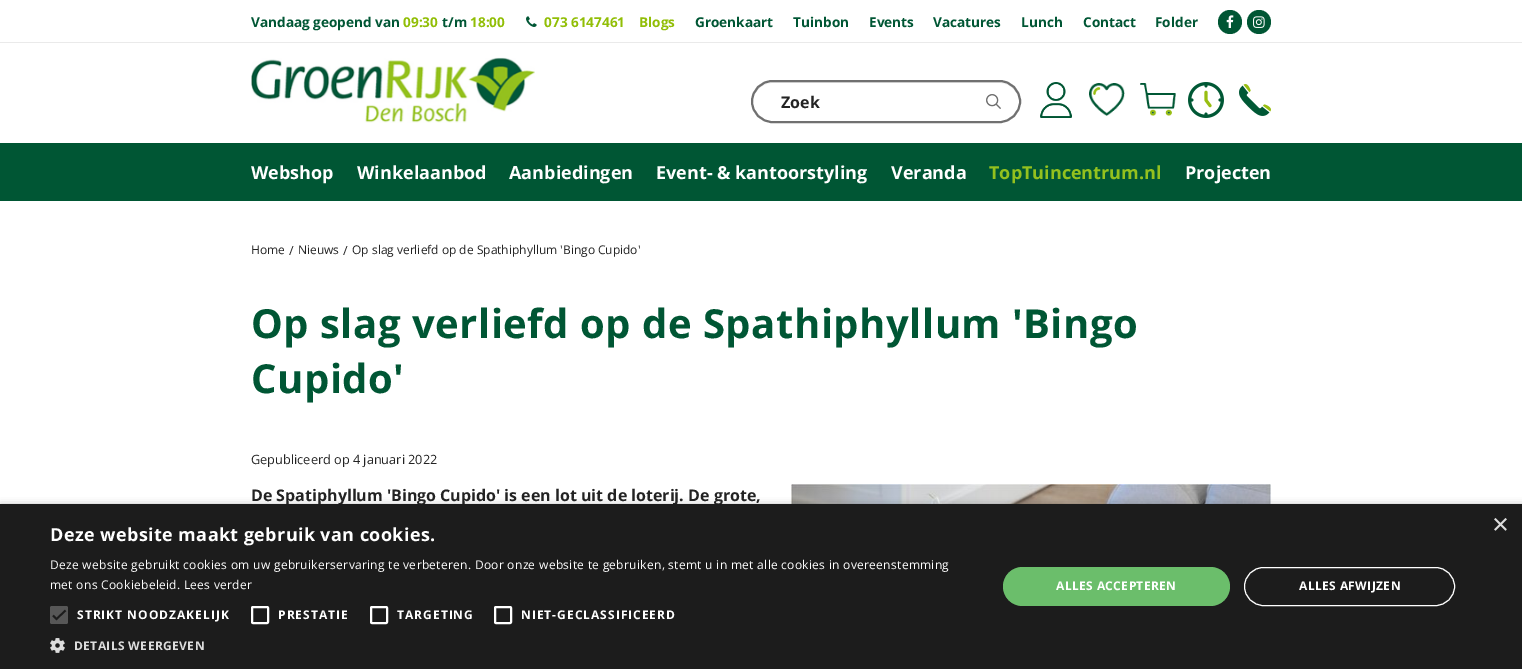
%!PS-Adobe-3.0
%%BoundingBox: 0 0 1522 669
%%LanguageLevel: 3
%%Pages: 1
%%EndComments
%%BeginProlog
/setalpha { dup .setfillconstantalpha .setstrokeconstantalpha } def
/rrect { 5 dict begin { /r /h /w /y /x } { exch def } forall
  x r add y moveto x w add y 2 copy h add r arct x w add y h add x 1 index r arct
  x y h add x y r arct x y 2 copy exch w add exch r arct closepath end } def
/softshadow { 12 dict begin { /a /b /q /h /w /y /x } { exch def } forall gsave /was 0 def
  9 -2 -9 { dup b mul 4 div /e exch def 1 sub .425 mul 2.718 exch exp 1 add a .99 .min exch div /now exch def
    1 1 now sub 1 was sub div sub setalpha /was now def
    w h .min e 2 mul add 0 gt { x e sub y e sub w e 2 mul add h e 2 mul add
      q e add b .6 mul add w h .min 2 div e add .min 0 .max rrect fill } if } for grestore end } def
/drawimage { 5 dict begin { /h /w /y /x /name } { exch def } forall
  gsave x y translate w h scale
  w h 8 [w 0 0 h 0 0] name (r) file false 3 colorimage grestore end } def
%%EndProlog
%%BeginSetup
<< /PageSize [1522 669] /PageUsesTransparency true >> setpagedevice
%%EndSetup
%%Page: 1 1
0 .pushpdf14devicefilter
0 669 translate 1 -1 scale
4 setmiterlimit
1 setgray
0 0 1522 669 rectfill
0.918 setgray
0 42 1522 1 rectfill
(images/1.raw) 526 16 11 11 drawimage
0 0.337 0.204 setrgbcolor
newpath 1230 22 12 0 360 arc closepath fill
(images/2.raw) 1226 15 8 13 drawimage
newpath 1259 22 12 0 360 arc closepath fill
(images/3.raw) 1253 16 12 12 drawimage
(images/4.raw) 251 57 284 66 drawimage
0.925 setgray
newpath 772 83 moveto 1000 83 lineto 1010 83 1019 92 1019 102 curveto 1019 73 975 82 962 82 curveto 810 82 lineto 797 82 753 73 753 102 curveto 753 92 762 83 772 83 curveto closepath fill
0.439 setgray
2 setlinewidth
752 81 268 41 20.5 rrect stroke
(images/5.raw) 986 94 15 15 drawimage
(images/6.raw) 1040 82 32 36 drawimage
(images/7.raw) 1089 83 36 33 drawimage
(images/8.raw) 1140 83 36 33 drawimage
(images/9.raw) 1188 82 36 36 drawimage
(images/10.raw) 1239 84 32 32 drawimage
0 0.337 0.204 setrgbcolor
0 143 1522 58 rectfill
(images/11.raw) 791 484 480 20 drawimage
0 setgray
1 506 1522 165 0 4 0.35 softshadow
/OpenSans-Bold [13.6 0 0 -13.6 0 0] selectfont
0 0.337 0.204 setrgbcolor
251 27 moveto (Vandaag geopend van) show
0.569 0.745 0.024 setrgbcolor
403 27 moveto (09:30) show
0 0.337 0.204 setrgbcolor
442 27 moveto (t/m) show
0.569 0.745 0.024 setrgbcolor
470 27 moveto (18:00) show
544 27 moveto (073 6147461) show
639 27 moveto (Blogs) show
0 0.337 0.204 setrgbcolor
695 27 moveto (Groenkaart) show
793 27 moveto (Tuinbon) show
869 27 moveto (Events) show
933 27 moveto (Vacatures) show
1021 27 moveto (Lunch) show
1083 27 moveto (Contact) show
1155 27 moveto (Folder) show
/OpenSans-Bold [16 0 0 -16 0 0] selectfont
0.137 setgray
781 108 moveto (Zoek) show
/OpenSans-Bold [18 0 0 -18 0 0] selectfont
1 setgray
251 179 moveto (Webshop) show
357 179 moveto (Winkelaanbod) show
509 179 moveto (Aanbiedingen) show
656 179 moveto (Event- & kantoorstyling) show
891 179 moveto (Veranda) show
0.58 0.757 0.118 setrgbcolor
989 179 moveto (TopTuincentrum.nl) show
1 setgray
1185 179 moveto (Projecten) show
/OpenSans-Bold [40 0 0 -40 0 0] selectfont
0 0.337 0.204 setrgbcolor
251 338 moveto 0.5 0 (Op slag verliefd op de Spathiphyllum 'Bingo) ashow
251 393 moveto 0.5 0 (Cupido') ashow
/OpenSans-Regular [12.75 0 0 -12.75 0 0] selectfont
0.137 setgray
251 464 moveto (Gepubliceerd op 4 januari 2022) show
/OpenSans-Bold [16 0 0 -16 0 0] selectfont
251 501 moveto (De Spatiphyllum 'Bingo Cupido' is een lot uit de loterij. De grote,) show
/OpenSans-Regular [12 0 0 -12 0 0] selectfont
251 254 moveto (Home) show
/OpenSans-Regular [12.75 0 0 -12.75 0 0] selectfont
289 255 moveto (/) show
/OpenSans-Regular [12 0 0 -12 0 0] selectfont
298 254 moveto (Nieuws) show
/OpenSans-Regular [12.75 0 0 -12.75 0 0] selectfont
343 255 moveto (/) show
/OpenSans-Regular [12 0 0 -12 0 0] selectfont
352 254 moveto (Op slag verliefd op de Spathiphyllum 'Bingo Cupido') show
0.11 setgray
0 504 1522 165 rectfill
/LiberationSans-Regular [29 0 0 -29 0 0] selectfont
0.867 setgray
1492 534 moveto (×) show
/OpenSans-Bold [18 0 0 -18 0 0] selectfont
1 setgray
50 541 moveto 0.4 0 (Deze website maakt gebruik van cookies.) ashow
/OpenSans-Regular [12 0 0 -12 0 0] selectfont
50 569 moveto 0.3 0 (Deze website gebruikt cookies om uw gebruikerservaring te verbeteren. Door onze website te gebruiken, stemt u in met alle cookies in overeenstemming) ashow
50 589 moveto 0.3 0 (met ons Cookiebeleid. Lees verder) ashow
0.341 setgray
50 606 18 18 2 rrect fill
0.11 setgray
1.8 setlinewidth
newpath 53 615.5 moveto 56.5 619 lineto 65.5 610.5 lineto stroke
/OpenSans-Bold [12 0 0 -12 0 0] selectfont
1 setgray
77 619 moveto 1 0 (STRIKT NOODZAKELIJK) ashow
2 setlinewidth
252 607 16 16 1 rrect stroke
278 619 moveto 1 0 (PRESTATIE) ashow
371 607 16 16 1 rrect stroke
397 619 moveto 1 0 (TARGETING) ashow
495 607 16 16 1 rrect stroke
521 619 moveto 1 0 (NIET-GECLASSIFICEERD) ashow
(images/12.raw) 50 638 15 15 drawimage
0.867 setgray
74 650 moveto 0.4 0 (DETAILS WEERGEVEN) ashow
0.42 0.745 0.42 setrgbcolor
1003 567 227 39 19.5 rrect fill
1 setgray
1056 590 moveto 0.4 0 (ALLES ACCEPTEREN) ashow
1 setlinewidth
1244.5 567.5 210 38 19 rrect stroke
1299 590 moveto 0.4 0 (ALLES AFWIJZEN) ashow
.poppdf14devicefilter showpage
%%EOF
